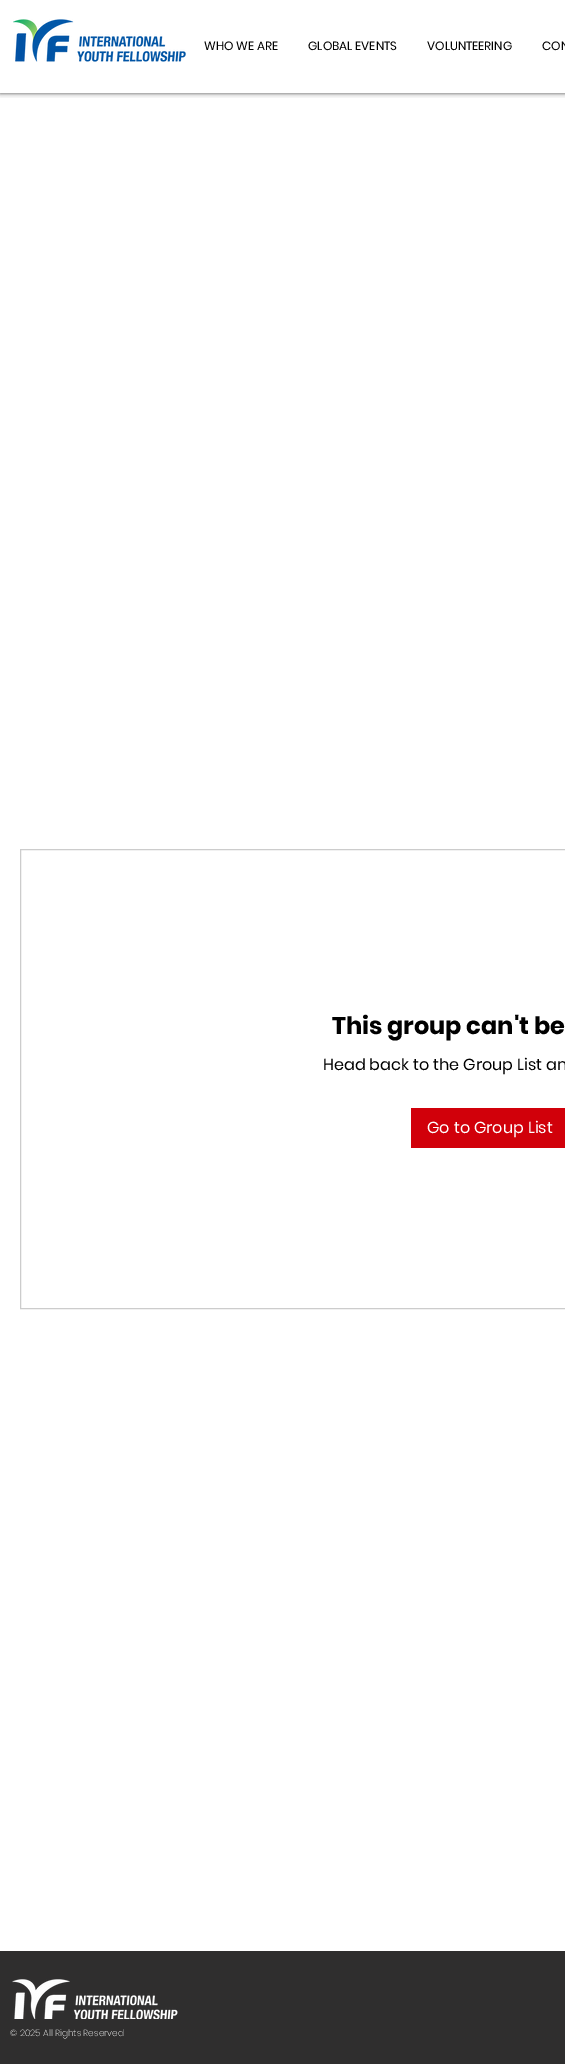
%!PS-Adobe-3.0
%%BoundingBox: 0 0 565 2064
%%LanguageLevel: 3
%%Pages: 1
%%EndComments
%%BeginProlog
/setalpha { dup .setfillconstantalpha .setstrokeconstantalpha } def
/rrect { 5 dict begin { /r /h /w /y /x } { exch def } forall
  x r add y moveto x w add y 2 copy h add r arct x w add y h add x 1 index r arct
  x y h add x y r arct x y 2 copy exch w add exch r arct closepath end } def
/softshadow { 12 dict begin { /a /b /q /h /w /y /x } { exch def } forall gsave /was 0 def
  9 -2 -9 { dup b mul 4 div /e exch def 1 sub .425 mul 2.718 exch exp 1 add a .99 .min exch div /now exch def
    1 1 now sub 1 was sub div sub setalpha /was now def
    w h .min e 2 mul add 0 gt { x e sub y e sub w e 2 mul add h e 2 mul add
      q e add b .6 mul add w h .min 2 div e add .min 0 .max rrect fill } if } for grestore end } def
/drawimage { 5 dict begin { /h /w /y /x /name } { exch def } forall
  gsave x y translate w h scale
  w h 8 [w 0 0 h 0 0] name (r) file false 3 colorimage grestore end } def
%%EndProlog
%%BeginSetup
<< /PageSize [565 2064] /PageUsesTransparency true >> setpagedevice
%%EndSetup
%%Page: 1 1
0 .pushpdf14devicefilter
0 2064 translate 1 -1 scale
4 setmiterlimit
1 setgray
0 0 565 2064 rectfill
gsave
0 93 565 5 rectclip
0 setgray
0 0 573 93 0 2.5 0.7 softshadow
grestore
(images/1.raw) 13 19 173 43 drawimage
0.8 setgray
20.5 849.5 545 459 rectstroke
0.82 0 0.039 setrgbcolor
411 1108 154 40 rectfill
0.184 0.18 0.18 setrgbcolor
0 1951 565 113 rectfill
(images/2.raw) 12 1979 166 40 drawimage
/Poppins-Regular [12 0 0 -12 0 0] selectfont
0 setgray
204 50 moveto (WHO WE ARE) show
308 50 moveto (GLOBAL EVENTS) show
427 50 moveto (VOLUNTEERING) show
542 50 moveto (CON) show
/Poppins-Bold [24 0 0 -24 0 0] selectfont
332 1034 moveto (This group can't be) show
/Poppins-Regular [16 0 0 -16 0 0] selectfont
323 1070 moveto (Head back to the Group List an) show
1 setgray
427 1133 moveto (Go to Group List) show
/Poppins-ExtraLight [9 0 0 -9 0 0] selectfont
10 2036 moveto (© 2025 All Rights Reserved) show
.poppdf14devicefilter showpage
%%EOF
